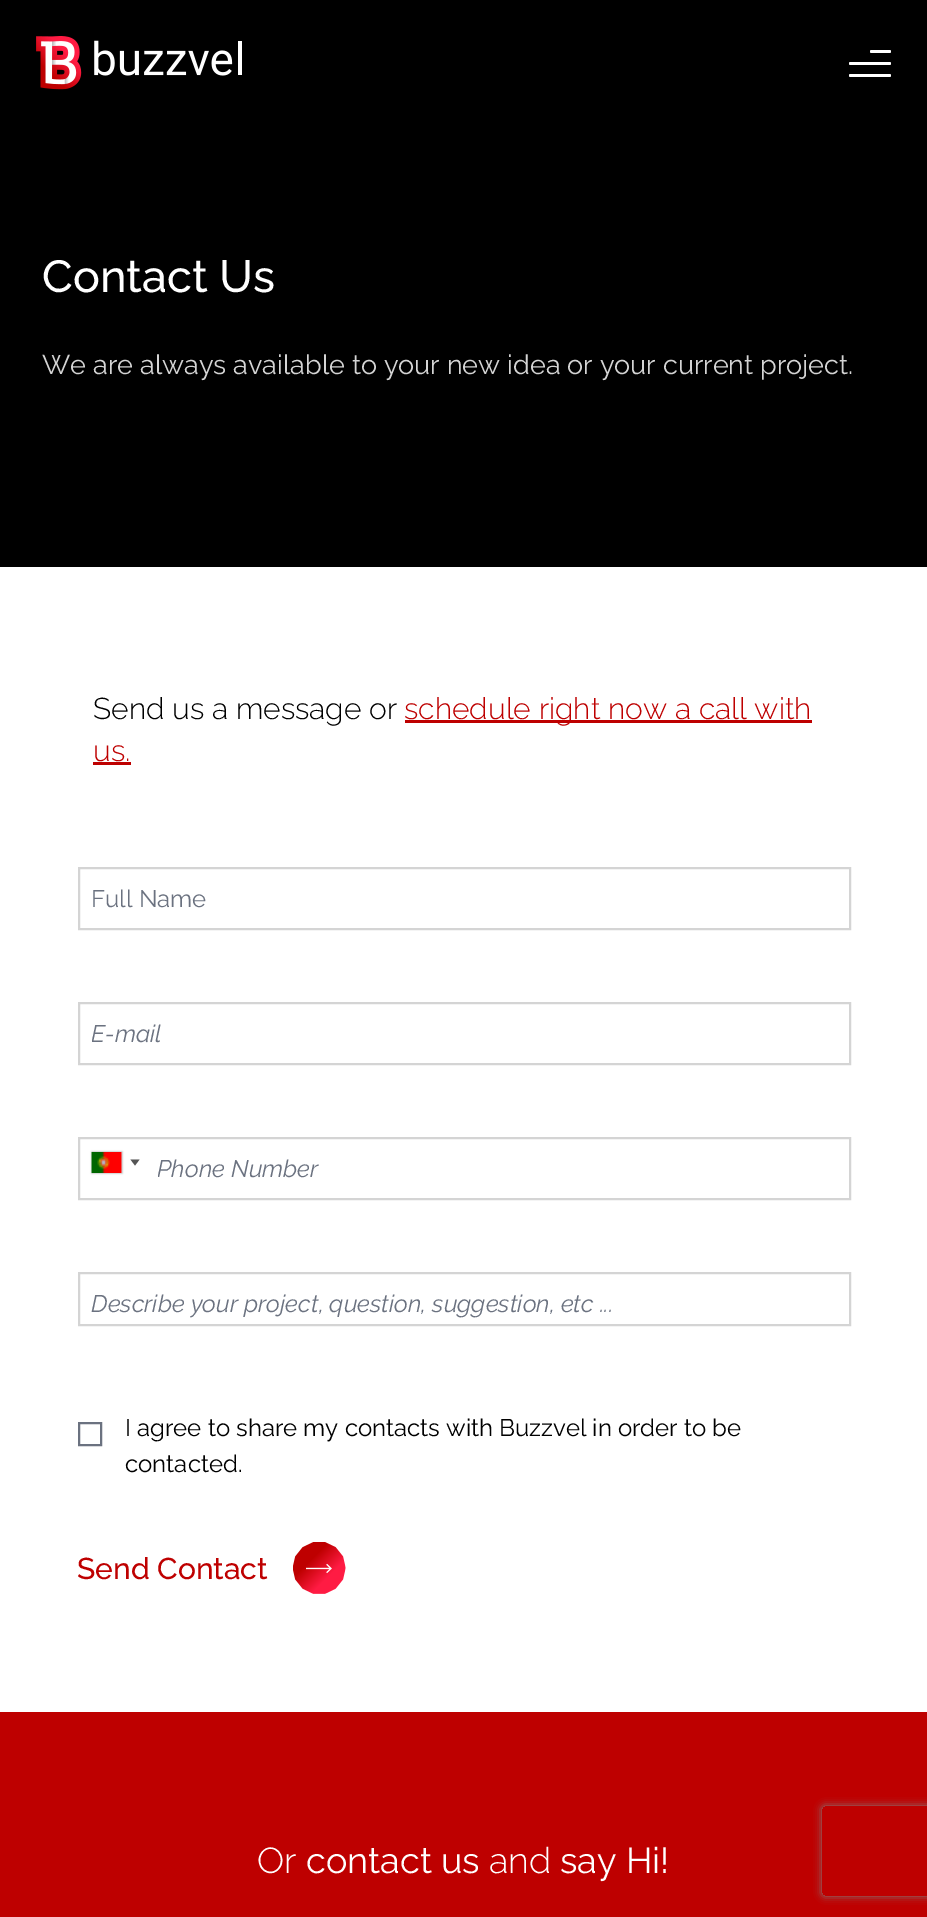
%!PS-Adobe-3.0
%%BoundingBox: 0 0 927 1917
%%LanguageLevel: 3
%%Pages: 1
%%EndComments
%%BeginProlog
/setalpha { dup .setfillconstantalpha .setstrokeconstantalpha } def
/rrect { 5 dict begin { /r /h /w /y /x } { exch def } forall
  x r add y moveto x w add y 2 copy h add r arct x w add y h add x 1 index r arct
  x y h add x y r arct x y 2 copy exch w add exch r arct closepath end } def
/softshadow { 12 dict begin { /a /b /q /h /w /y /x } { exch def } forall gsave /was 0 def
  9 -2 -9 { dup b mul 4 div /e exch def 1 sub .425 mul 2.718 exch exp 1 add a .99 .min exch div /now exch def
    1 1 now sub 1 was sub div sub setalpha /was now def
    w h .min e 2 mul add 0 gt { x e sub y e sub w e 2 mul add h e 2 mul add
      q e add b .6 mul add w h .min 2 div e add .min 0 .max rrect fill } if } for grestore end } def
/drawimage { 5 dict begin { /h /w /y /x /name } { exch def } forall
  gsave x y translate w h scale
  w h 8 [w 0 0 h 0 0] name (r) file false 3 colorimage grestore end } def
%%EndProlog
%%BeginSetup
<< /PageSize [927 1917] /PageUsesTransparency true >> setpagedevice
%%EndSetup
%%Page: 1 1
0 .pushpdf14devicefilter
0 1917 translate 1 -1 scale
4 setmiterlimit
0 setgray
0 0 927 1917 rectfill
(images/1.raw) 36 36 206 54 drawimage
1 setgray
870 50 21 3 1.5 rrect fill
849 62 42 3 1.5 rrect fill
849 74 42 3 1.5 rrect fill
0 567 927 1145 rectfill
0.745 0 0 setrgbcolor
405 720 407 3 rectfill
93 762 38 3 rectfill
0.831 setgray
2 setlinewidth
79 868 771 61 rectstroke
79 1003 771 61 rectstroke
79 1138 771 61 rectstroke
0.533 setgray
92 1152 30 21 0 1 1 softshadow
(images/2.raw) 91 1152 31 21 drawimage
0.333 setgray
newpath 130.5 1159.5 moveto 139.5 1159.5 lineto 135 1165.5 lineto closepath fill
0.831 setgray
79 1273 771 52 rectstroke
0.42 0.447 0.502 setrgbcolor
79 1423 22 22 rectstroke
(images/3.raw) 293 1542 53 52 drawimage
0.745 0 0 setrgbcolor
0 1712 927 205 rectfill
gsave
newpath 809 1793 moveto 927 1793 lineto 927 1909 lineto 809 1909 lineto closepath 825 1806 moveto 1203 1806 lineto 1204.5 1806 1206 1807.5 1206 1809 curveto 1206 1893 lineto 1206 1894.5 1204.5 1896 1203 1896 curveto 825 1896 lineto 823.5 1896 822 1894.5 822 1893 curveto 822 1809 lineto 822 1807.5 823.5 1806 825 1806 curveto closepath eoclip newpath
0.502 setgray
822 1806 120 90 3 4 1 softshadow
grestore
/Raleway-Medium [45 0 0 -45 0 0] selectfont
1 setgray
42 292 moveto (Contact Us) show
/Raleway-Regular [27 0 0 -27 0 0] selectfont
0.831 setgray
42 374 moveto (We are always available to your new idea or your current project.) show
/Raleway-Light [30 0 0 -30 0 0] selectfont
0 setgray
93 719 moveto (Send us a message or) show
0.745 0 0 setrgbcolor
404 719 moveto (schedule right now a call with) show
93 761 moveto (us.) show
/Raleway-Regular [24 0 0 -24 0 0] selectfont
0.42 0.447 0.502 setrgbcolor
91 907 moveto (Full Name) show
gsave
92 1019 739 28 rectclip
/Raleway-Italic [24 0 0 -24 0 0] selectfont
91 1042 moveto (E-mail) show
grestore
gsave
158 1154 682 28 rectclip
/Raleway-Italic [24 0 0 -24 0 0] selectfont
157 1177 moveto (Phone Number) show
grestore
/Raleway-Italic [24 0 0 -24 0 0] selectfont
91 1312 moveto (Describe your project, question, suggestion, etc ...) show
/Raleway-Regular [24 0 0 -24 0 0] selectfont
0 setgray
125 1436 moveto (I agree to share my contacts with Buzzvel in order to be) show
125 1472 moveto (contacted.) show
/Raleway-Medium [30 0 0 -30 0 0] selectfont
0.745 0 0 setrgbcolor
77 1579 moveto (Send Contact) show
/Raleway-Light [36 0 0 -36 0 0] selectfont
1 setgray
257 1873 moveto (Or) show
/Raleway-Regular [36 0 0 -36 0 0] selectfont
306 1873 moveto (contact us) show
/Raleway-Light [36 0 0 -36 0 0] selectfont
489 1873 moveto (and) show
/Raleway-Regular [36 0 0 -36 0 0] selectfont
560 1873 moveto (say Hi!) show
.poppdf14devicefilter showpage
%%EOF
